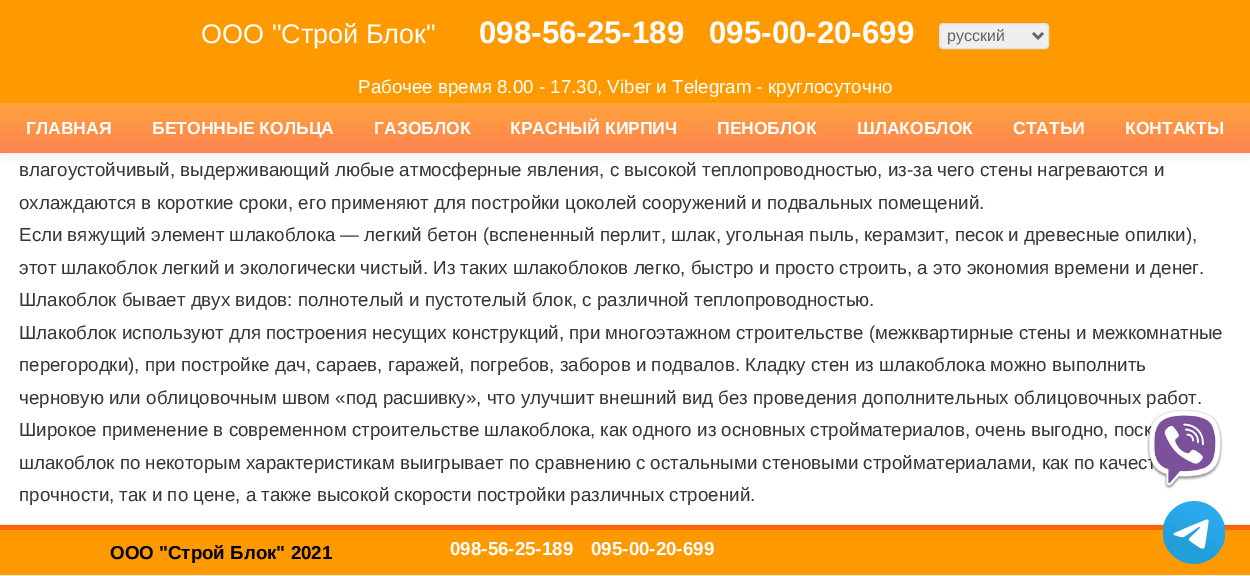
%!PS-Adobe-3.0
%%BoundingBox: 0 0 1250 576
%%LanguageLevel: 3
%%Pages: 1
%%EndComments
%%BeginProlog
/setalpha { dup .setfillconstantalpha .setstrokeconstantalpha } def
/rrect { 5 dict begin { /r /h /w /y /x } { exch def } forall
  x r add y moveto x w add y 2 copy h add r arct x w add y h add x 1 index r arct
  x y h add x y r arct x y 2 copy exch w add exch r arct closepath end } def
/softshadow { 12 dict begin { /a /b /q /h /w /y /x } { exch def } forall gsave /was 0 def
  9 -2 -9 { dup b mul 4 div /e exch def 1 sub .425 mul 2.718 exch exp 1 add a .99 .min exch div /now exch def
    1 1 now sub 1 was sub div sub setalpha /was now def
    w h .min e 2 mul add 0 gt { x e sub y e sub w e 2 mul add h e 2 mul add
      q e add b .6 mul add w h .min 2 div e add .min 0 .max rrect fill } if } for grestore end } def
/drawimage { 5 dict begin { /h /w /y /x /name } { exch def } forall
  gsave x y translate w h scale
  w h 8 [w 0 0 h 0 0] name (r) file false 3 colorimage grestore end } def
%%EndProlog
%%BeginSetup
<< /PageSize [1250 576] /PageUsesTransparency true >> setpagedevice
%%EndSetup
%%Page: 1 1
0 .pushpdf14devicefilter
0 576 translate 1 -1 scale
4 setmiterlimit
1 setgray
0 0 1250 576 rectfill
0.196 setgray
0 3 1250 152 0 5 0.08 softshadow
1 0.6 0 setrgbcolor
0 0 1250 103 rectfill
0.937 setgray
939.5 23.5 109 25 3.5 rrect gsave fill grestore
0.871 setgray
stroke
0.4 setgray
2.5 setlinewidth
newpath 1033 33 moveto 1038 38 lineto 1043 33 lineto stroke
gsave newpath 0 103 moveto 1250 103 lineto 1250 153 lineto 0 153 lineto closepath clip newpath
<< /ShadingType 2 /ColorSpace /DeviceRGB /Coords [625 102 625 153] /Extend [true true] /Function << /FunctionType 2 /Domain [0 1] /C0 [0.996 0.647 0.239] /C1 [1 0.51 0.314] /N 1 >> >> shfill grestore
0.918 0.922 0.925 setrgbcolor
0 524 1250 1 rectfill
1 0.6 0 setrgbcolor
0 530 1250 45 rectfill
1 0.392 0 setrgbcolor
0 525 1250 5 rectfill
0.918 0.922 0.925 setrgbcolor
0 575 1250 1 rectfill
(images/2.raw) 1163 501 62 63 drawimage
/LiberationSans-Regular [27 0 0 -27 0 0] selectfont
1 setgray
201 43 moveto (ООО "Строй Блок") show
/LiberationSans-Bold [31.25 0 0 -31.25 0 0] selectfont
479 43 moveto (098-56-25-189) show
709 43 moveto (095-00-20-699) show
/LiberationSans-Regular [16 0 0 -16 0 0] selectfont
0.4 setgray
947 41 moveto (русский) show
/LiberationSans-Regular [18.75 0 0 -18.75 0 0] selectfont
1 setgray
358 93 moveto (Рабочее время 8.00 - 17.30, Viber и Telegram - круглосуточно) show
/LiberationSans-Bold [17.5 0 0 -17.5 0 0] selectfont
26 134 moveto (ГЛАВНАЯ) show
152 134 moveto (БЕТОННЫЕ КОЛЬЦА) show
374 134 moveto (ГАЗОБЛОК) show
510 134 moveto (КРАСНЫЙ КИРПИЧ) show
717 134 moveto (ПЕНОБЛОК) show
857 134 moveto (ШЛАКОБЛОК) show
1013 134 moveto (СТАТЬИ) show
1125 134 moveto (КОНТАКТЫ) show
/LiberationSans-Regular [18.75 0 0 -18.75 0 0] selectfont
0.204 0.224 0.196 setrgbcolor
19 176 moveto (влагоустойчивый, выдерживающий любые атмосферные явления, с высокой теплопроводностью, из-за чего стены нагреваются и) show
19 209 moveto (охлаждаются в короткие сроки, его применяют для постройки цоколей сооружений и подвальных помещений.) show
19 241 moveto (Если вяжущий элемент шлакоблока — легкий бетон \(вспененный перлит, шлак, угольная пыль, керамзит, песок и древесные опилки\),) show
19 274 moveto (этот шлакоблок легкий и экологически чистый. Из таких шлакоблоков легко, быстро и просто строить, а это экономия времени и денег.) show
19 306 moveto (Шлакоблок бывает двух видов: полнотелый и пустотелый блок, с различной теплопроводностью.) show
19 339 moveto (Шлакоблок используют для построения несущих конструкций, при многоэтажном строительстве \(межквартирные стены и межкомнатные) show
19 371 moveto (перегородки\), при постройке дач, сараев, гаражей, погребов, заборов и подвалов. Кладку стен из шлакоблока можно выполнить) show
19 404 moveto (черновую или облицовочным швом «под расшивку», что улучшит внешний вид без проведения дополнительных облицовочных работ.) show
19 436 moveto (Широкое применение в современном строительстве шлакоблока, как одного из основных стройматериалов, очень выгодно, поск) show
19 469 moveto (шлакоблок по некоторым характеристикам выигрывает по сравнению с остальными стеновыми стройматериалами, как по качест) show
19 501 moveto (прочности, так и по цене, а также высокой скорости постройки различных строений.) show
(images/1.raw) 1147 409 76 80 drawimage
/LiberationSans-Bold [18.75 0 0 -18.75 0 0] selectfont
0 setgray
110 559 moveto (ООО "Строй Блок" 2021) show
1 setgray
450 555 moveto (098-56-25-189) show
591 555 moveto (095-00-20-699) show
.poppdf14devicefilter showpage
%%EOF
